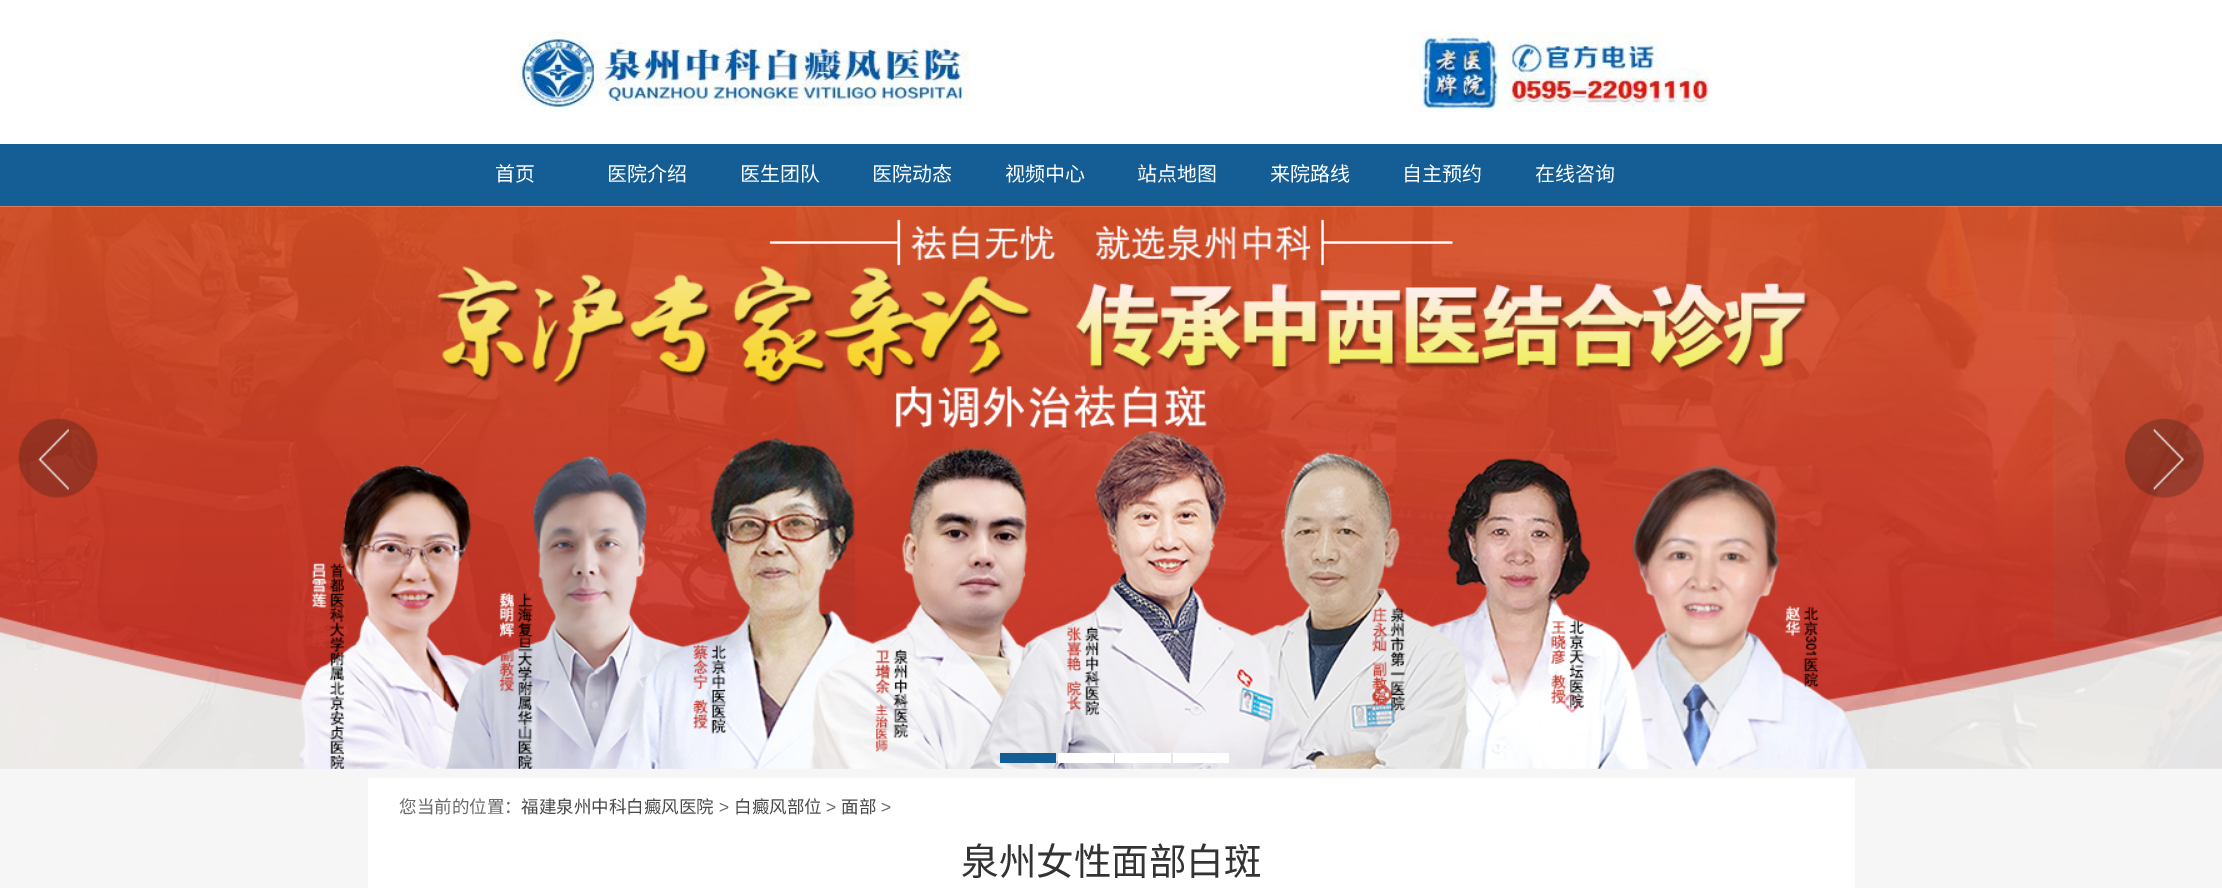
%!PS-Adobe-3.0
%%BoundingBox: 0 0 2222 888
%%LanguageLevel: 3
%%Pages: 1
%%EndComments
%%BeginProlog
/drawimage { 5 dict begin { /h /w /y /x /name } { exch def } forall
  gsave x y translate w h scale
  w h 8 [w 0 0 h 0 0] name (r) file false 3 colorimage grestore end } def
%%EndProlog
%%BeginSetup
<< /PageSize [2222 888] >> setpagedevice
%%EndSetup
%%Page: 1 1
0 888 translate 1 -1 scale
4 setmiterlimit
0.965 setgray
0 0 2222 888 rectfill
1 setgray
0 0 2222 144 rectfill
(images/1.raw) 509 31 1201 82 drawimage
0.082 0.369 0.584 setrgbcolor
0 144 2222 62 rectfill
(images/2.raw) 0 206 2222 563 drawimage
(images/3.raw) 18 418 80 80 drawimage
(images/4.raw) 2125 418 79 80 drawimage
1000 753 56 10 rectfill
1 setgray
1058 753 56 10 rectfill
1115 753 56 10 rectfill
1173 753 56 10 rectfill
368 778 1487 110 rectfill
/NotoSansCJKSC-Regular [20 0 0 -20 0 0] selectfont
495 181 moveto (首页) show
607 181 moveto (医院介绍) show
740 181 moveto (医生团队) show
872 181 moveto (医院动态) show
1005 181 moveto (视频中心) show
1137 181 moveto (站点地图) show
1270 181 moveto (来院路线) show
1402 181 moveto (自主预约) show
1535 181 moveto (在线咨询) show
/NotoSansCJKSC-Regular [17.5 0 0 -17.5 0 0] selectfont
0.424 setgray
399 813 moveto (您当前的位置：) show
0.29 setgray
521 813 moveto (福建泉州中科白癜风医院) show
/LiberationSans-Regular [17.5 0 0 -17.5 0 0] selectfont
0.424 setgray
719 813 moveto (>) show
/NotoSansCJKSC-Regular [17.5 0 0 -17.5 0 0] selectfont
0.29 setgray
734 813 moveto (白癜风部位) show
/LiberationSans-Regular [17.5 0 0 -17.5 0 0] selectfont
0.424 setgray
826 813 moveto (>) show
/NotoSansCJKSC-Regular [17.5 0 0 -17.5 0 0] selectfont
0.29 setgray
841 813 moveto (面部) show
/LiberationSans-Regular [17.5 0 0 -17.5 0 0] selectfont
0.424 setgray
881 813 moveto (>) show
/NotoSansCJKSC-Regular [37.5 0 0 -37.5 0 0] selectfont
0.2 setgray
961 875 moveto (泉州女性面部白斑) show
showpage
%%EOF
